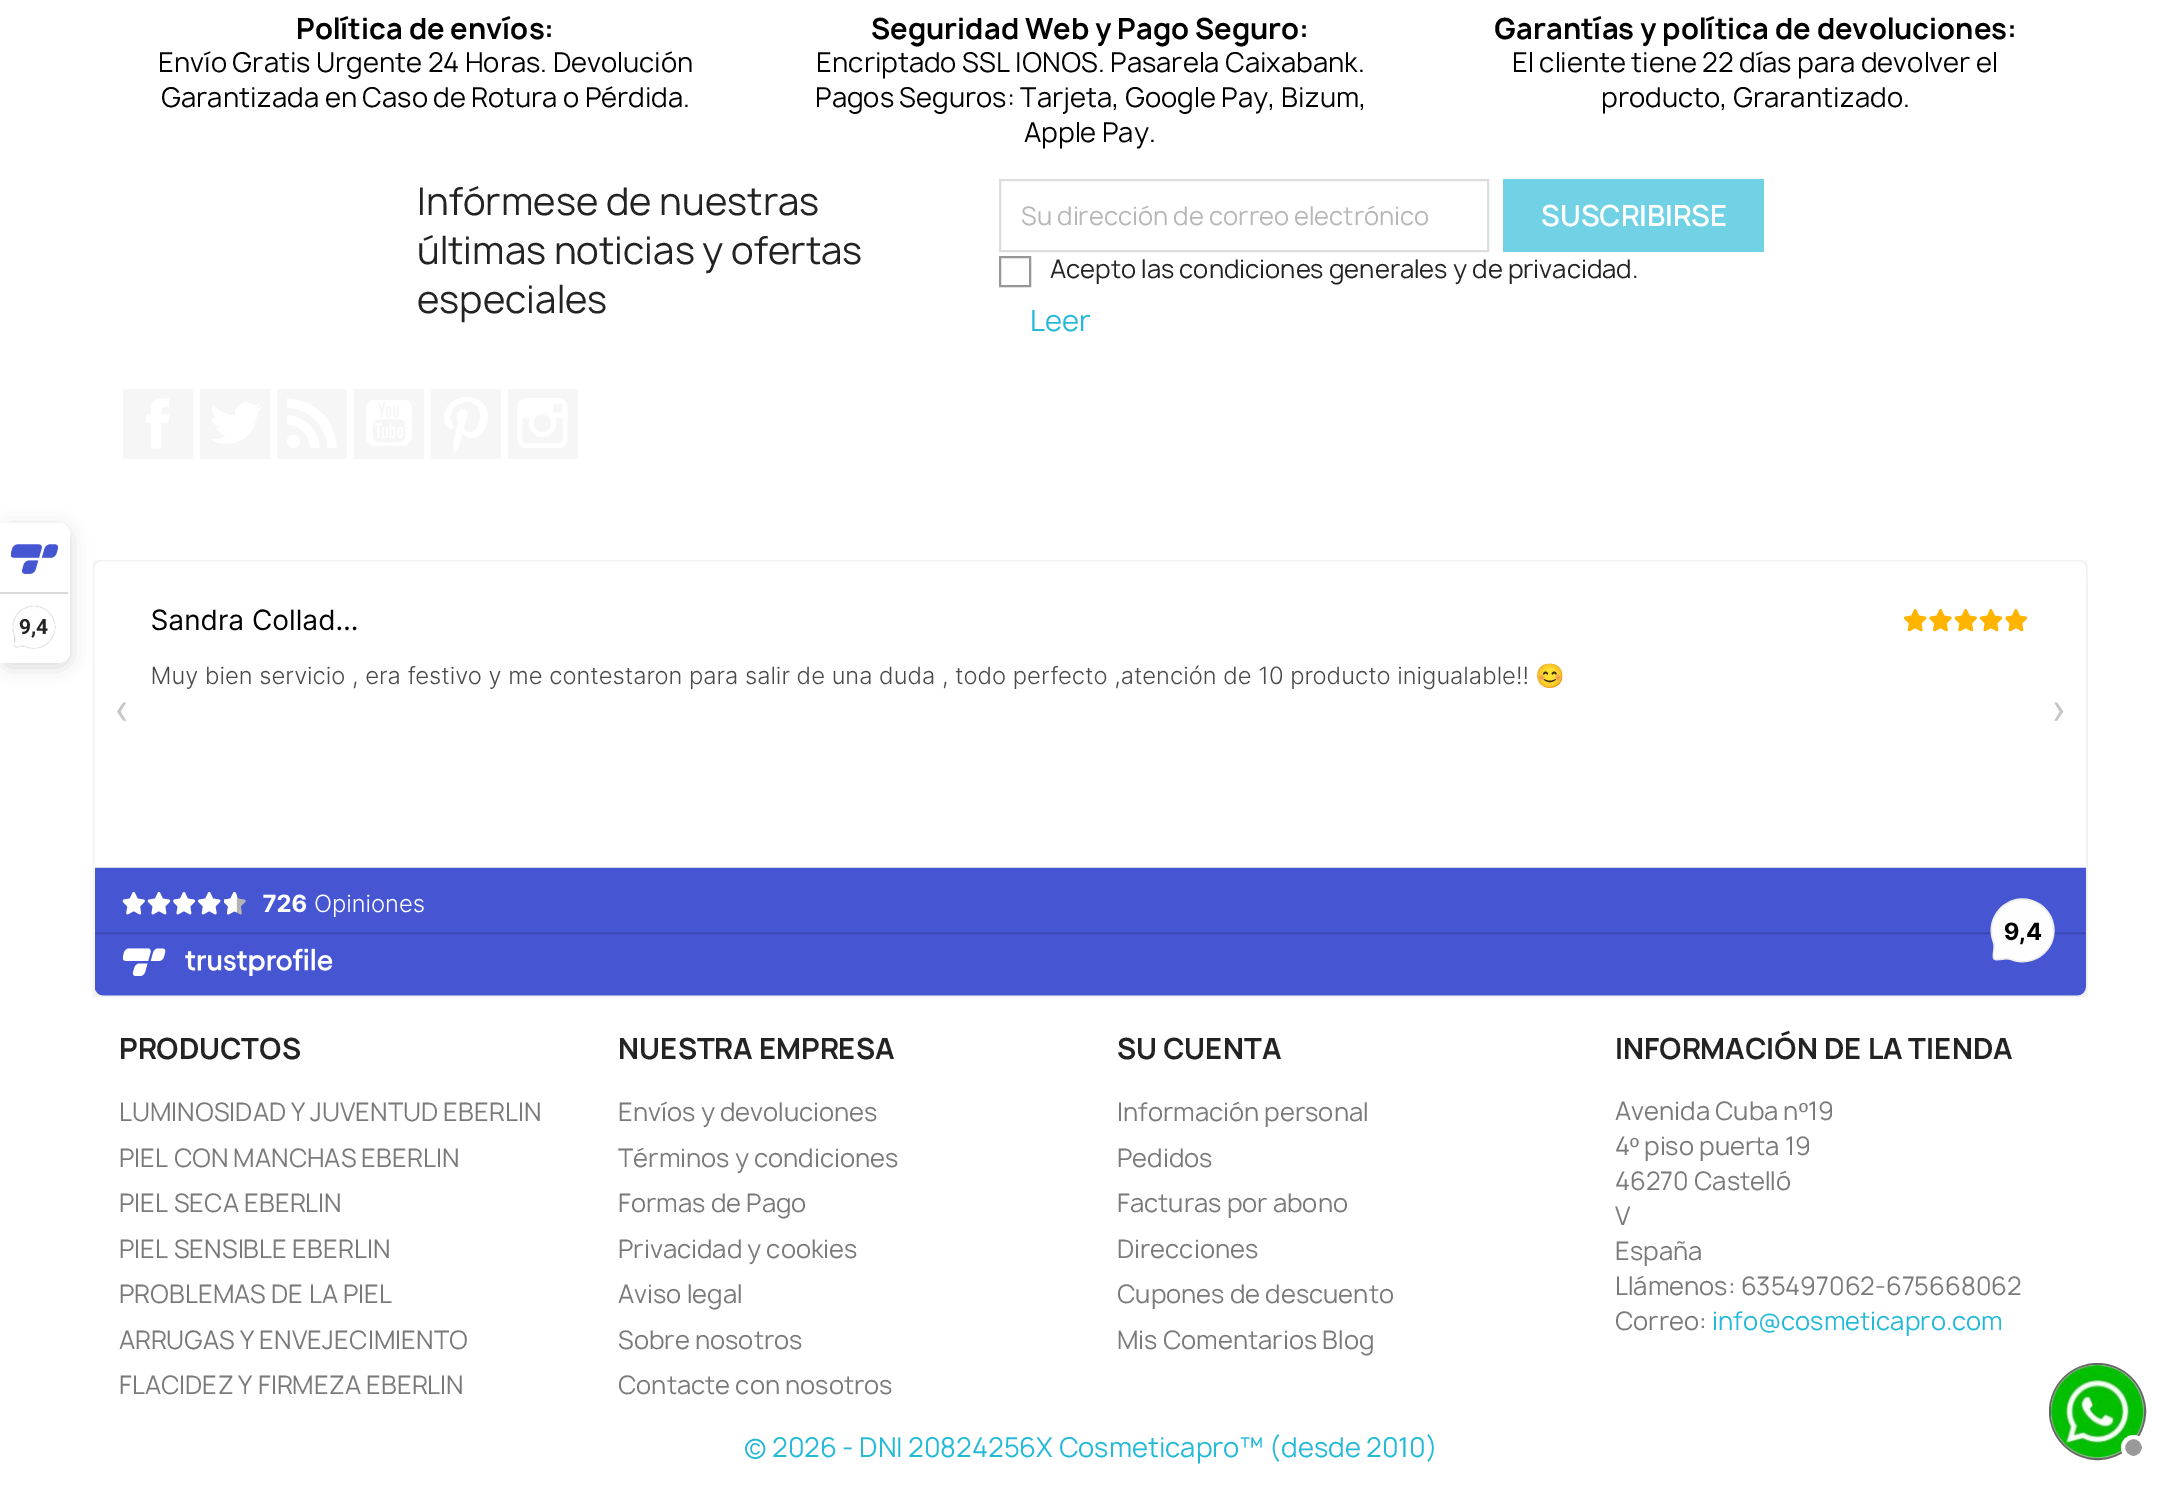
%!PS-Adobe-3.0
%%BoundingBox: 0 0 2180 1493
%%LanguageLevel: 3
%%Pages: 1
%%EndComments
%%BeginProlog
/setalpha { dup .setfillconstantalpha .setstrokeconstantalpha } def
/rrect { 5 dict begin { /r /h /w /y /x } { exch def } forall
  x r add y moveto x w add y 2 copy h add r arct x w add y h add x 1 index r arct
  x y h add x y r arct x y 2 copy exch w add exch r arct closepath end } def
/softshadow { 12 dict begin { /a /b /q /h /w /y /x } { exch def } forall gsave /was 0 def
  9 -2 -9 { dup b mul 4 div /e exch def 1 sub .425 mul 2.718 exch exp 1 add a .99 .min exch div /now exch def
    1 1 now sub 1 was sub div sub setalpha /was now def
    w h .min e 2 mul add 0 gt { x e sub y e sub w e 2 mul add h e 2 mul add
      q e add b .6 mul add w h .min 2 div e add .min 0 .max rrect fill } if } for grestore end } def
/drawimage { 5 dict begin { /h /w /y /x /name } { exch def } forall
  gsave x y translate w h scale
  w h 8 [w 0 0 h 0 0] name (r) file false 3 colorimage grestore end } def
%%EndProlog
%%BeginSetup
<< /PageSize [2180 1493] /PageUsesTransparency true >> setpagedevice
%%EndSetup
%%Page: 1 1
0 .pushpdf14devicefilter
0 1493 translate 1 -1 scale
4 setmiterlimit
1 setgray
0 0 2180 1493 rectfill
(images/9.raw) 92 560 1996 438 drawimage
0 setgray
0 527 70 140 11 9 0.15 softshadow
1 setgray
newpath 0 523 moveto 59 523 lineto 65 523 70 528 70 534 curveto 70 652 lineto 70 658 65 663 59 663 curveto 0 663 lineto closepath fill
(images/1.raw) 11 544 47 30 drawimage
0.851 setgray
0 592 68 2 rectfill
(images/2.raw) 12 605 44 44 drawimage
0.867 setgray
2 setlinewidth
1000 180 488 71 rectstroke
0.443 0.824 0.898 setrgbcolor
1503 179 261 73 rectfill
0.592 setgray
1000 257 30 29 rectstroke
0.965 setgray
123 389 70 70 rectfill
(images/3.raw) 146 398 23 51 drawimage
200 389 70 70 rectfill
(images/4.raw) 211 402 51 42 drawimage
277 389 70 70 rectfill
(images/5.raw) 287 398 50 50 drawimage
354 389 70 70 rectfill
(images/6.raw) 366 400 46 46 drawimage
431 389 70 70 rectfill
(images/7.raw) 444 397 44 56 drawimage
508 389 70 70 rectfill
(images/8.raw) 517 398 51 50 drawimage
0.902 setgray
newpath 2097.5 1411.5 48.5 0 360 arc closepath fill
0.25 setalpha
0.6 setgray
newpath 2097.5 1411.5 48.5 0 360 arc closepath fill
newpath 2097.5 1411.5 47.5 0 360 arc closepath fill
1 setalpha
0.4 setgray
newpath 2097.5 1411.5 47.5 0 360 arc closepath stroke
(images/10.raw) 2050 1364 95 95 drawimage
0.6 setgray
newpath 2133.5 1447.5 10.5 0 360 arc closepath gsave fill grestore
1 setgray
4 setlinewidth
stroke
/Roboto-Bold [21 0 0 -21 0 0] selectfont
0.137 setgray
19 634 moveto (9,4) show
/Manrope-Bold [28 0 0 -28 0 0] selectfont
0 setgray
296 39 moveto (Política de envíos:) show
/Manrope-Regular [26.25 0 0 -26.25 0 0] selectfont
158 72 moveto (Envío Gratis Urgente 24 Horas. Devolución) show
161 107 moveto (Garantizada en Caso de Rotura o Pérdida.) show
/Manrope-Bold [28 0 0 -28 0 0] selectfont
871 39 moveto (Seguridad Web y Pago Seguro:) show
/Manrope-Regular [26.25 0 0 -26.25 0 0] selectfont
816 72 moveto (Encriptado SSL IONOS. Pasarela Caixabank.) show
815 107 moveto (Pagos Seguros: Tarjeta, Google Pay, Bizum,) show
1024 142 moveto (Apple Pay.) show
/Manrope-Bold [28 0 0 -28 0 0] selectfont
1494 39 moveto (Garantías y política de devoluciones:) show
/Manrope-Regular [26.25 0 0 -26.25 0 0] selectfont
1512 72 moveto (El cliente tiene 22 días para devolver el) show
1601 107 moveto (producto, Grarantizado.) show
/Manrope-Regular [36.75 0 0 -36.75 0 0] selectfont
0.137 setgray
417 215 moveto (Infórmese de nuestras) show
417 264 moveto (últimas noticias y ofertas) show
417 313 moveto (especiales) show
/Manrope-Regular [24.5 0 0 -24.5 0 0] selectfont
0.718 setgray
1021 225 moveto (Su dirección de correo electrónico) show
/Manrope-SemiBold [28 0 0 -28 0 0] selectfont
1 setgray
1541 226 moveto (SUSCRIBIRSE) show
/Manrope-Regular [24.5 0 0 -24.5 0 0] selectfont
0.137 setgray
1050 278 moveto (Acepto las condiciones generales y de privacidad.) show
/Manrope-Regular [28 0 0 -28 0 0] selectfont
0.141 0.725 0.843 setrgbcolor
1030 331 moveto (Leer) show
/Manrope-Bold [28 0 0 -28 0 0] selectfont
0.137 setgray
119 1059 moveto (PRODUCTOS) show
/Manrope-Regular [24.5 0 0 -24.5 0 0] selectfont
0.478 setgray
119 1121 moveto (LUMINOSIDAD Y JUVENTUD EBERLIN) show
119 1167 moveto (PIEL CON MANCHAS EBERLIN) show
119 1212 moveto (PIEL SECA EBERLIN) show
119 1258 moveto (PIEL SENSIBLE EBERLIN) show
119 1303 moveto (PROBLEMAS DE LA PIEL) show
119 1349 moveto (ARRUGAS Y ENVEJECIMIENTO) show
119 1394 moveto (FLACIDEZ Y FIRMEZA EBERLIN) show
/Manrope-Bold [28 0 0 -28 0 0] selectfont
0.137 setgray
618 1059 moveto (NUESTRA EMPRESA) show
/Manrope-Regular [24.5 0 0 -24.5 0 0] selectfont
0.478 setgray
618 1121 moveto (Envíos y devoluciones) show
618 1167 moveto (Términos y condiciones) show
618 1212 moveto (Formas de Pago) show
618 1258 moveto (Privacidad y cookies) show
618 1303 moveto (Aviso legal) show
618 1349 moveto (Sobre nosotros) show
618 1394 moveto (Contacte con nosotros) show
/Manrope-Bold [28 0 0 -28 0 0] selectfont
0.137 setgray
1117 1059 moveto (SU CUENTA) show
/Manrope-Regular [24.5 0 0 -24.5 0 0] selectfont
0.478 setgray
1117 1121 moveto (Información personal) show
1117 1167 moveto (Pedidos) show
1117 1212 moveto (Facturas por abono) show
1117 1258 moveto (Direcciones) show
1117 1303 moveto (Cupones de descuento) show
1117 1349 moveto (Mis Comentarios Blog) show
/Manrope-Bold [28 0 0 -28 0 0] selectfont
0.137 setgray
1615 1059 moveto (INFORMACIÓN DE LA TIENDA) show
/Manrope-Regular [24.5 0 0 -24.5 0 0] selectfont
0.478 setgray
1615 1120 moveto (Avenida Cuba n) show
/LiberationSans-Regular [24.5 0 0 -24.5 0 0] selectfont
1799 1120 moveto (º) show
/Manrope-Regular [24.5 0 0 -24.5 0 0] selectfont
1808 1120 moveto (19) show
1615 1155 moveto (4) show
/LiberationSans-Regular [24.5 0 0 -24.5 0 0] selectfont
1630 1155 moveto (º) show
/Manrope-Regular [24.5 0 0 -24.5 0 0] selectfont
1644 1155 moveto (piso puerta 19) show
1615 1190 moveto (46270 Castelló) show
1615 1225 moveto (V) show
1615 1260 moveto (España) show
1615 1295 moveto (Llámenos: 635497062-675668062) show
1615 1330 moveto (Correo:) show
0.141 0.725 0.843 setrgbcolor
1712 1330 moveto (info@cosmeticapro.com) show
/Manrope-Regular [26.25 0 0 -26.25 0 0] selectfont
744 1457 moveto (© 2026 - DNI 20824256X Cosmeticapro™ \(desde 2010\)) show
.poppdf14devicefilter showpage
%%EOF
